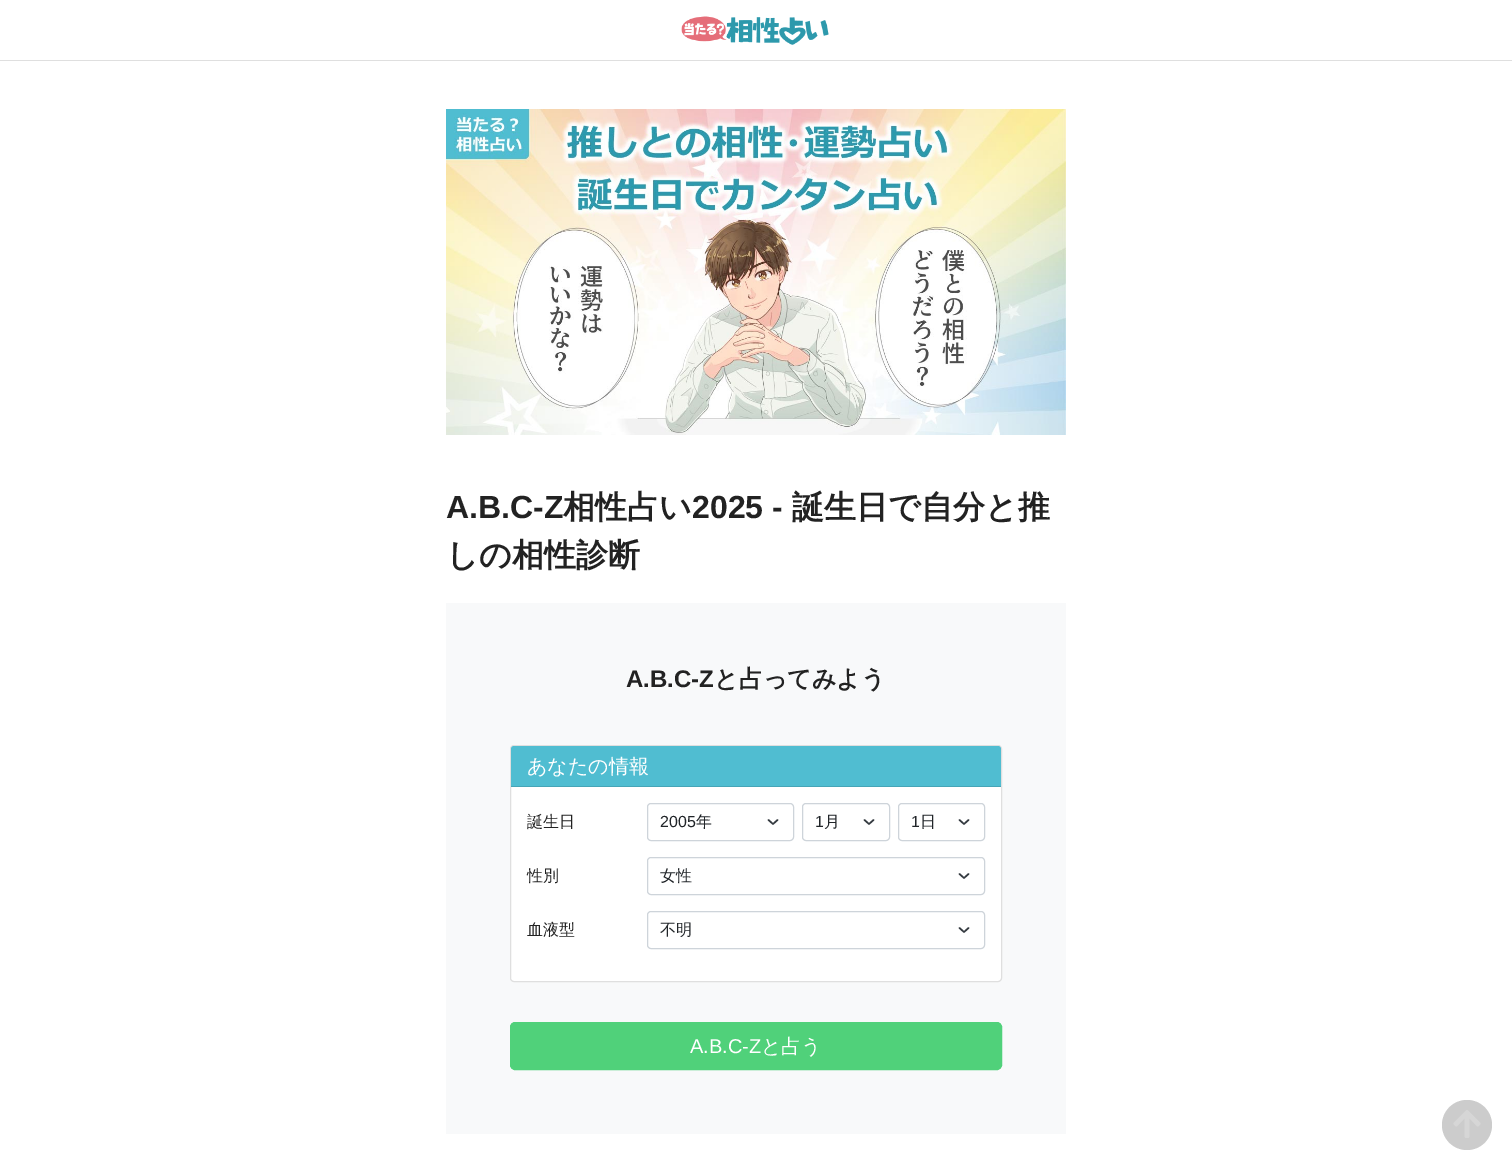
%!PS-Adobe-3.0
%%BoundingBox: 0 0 1512 1171
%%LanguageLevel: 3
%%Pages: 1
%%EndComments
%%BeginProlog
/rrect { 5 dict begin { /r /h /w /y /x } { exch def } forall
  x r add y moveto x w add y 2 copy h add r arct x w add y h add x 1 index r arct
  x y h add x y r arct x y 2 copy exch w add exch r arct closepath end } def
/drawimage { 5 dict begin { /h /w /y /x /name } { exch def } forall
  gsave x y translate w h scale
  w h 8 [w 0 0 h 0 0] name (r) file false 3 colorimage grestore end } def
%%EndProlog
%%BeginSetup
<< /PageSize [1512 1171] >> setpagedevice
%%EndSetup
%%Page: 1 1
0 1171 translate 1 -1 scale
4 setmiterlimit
1 setgray
0 0 1512 1171 rectfill
0.875 setgray
0 60 1512 1 rectfill
(images/1.raw) 681 16 148 29 drawimage
(images/2.raw) 446 109 620 326 drawimage
0.973 0.976 0.98 setrgbcolor
446 603 620 531 rectfill
1 setgray
510.5 745.5 491 236 3.5 rrect gsave fill grestore
0.875 setgray
stroke
0.314 0.741 0.82 setrgbcolor
newpath 514 746 moveto 998 746 lineto 999.5 746 1001 747.5 1001 749 curveto 1001 787 lineto 511 787 lineto 511 749 lineto 511 747.5 512.5 746 514 746 curveto closepath fill
0.275 0.647 0.718 setrgbcolor
511 786 490 1 rectfill
0.204 0.227 0.251 setrgbcolor
1.5 setlinewidth
1 setlinecap
1 setlinejoin
newpath 768.5 820 moveto 773 824 lineto 777.5 820 lineto stroke
0.808 0.831 0.855 setrgbcolor
1 setlinewidth
0 setlinecap
0 setlinejoin
647.5 803.5 146 37 3.5 rrect stroke
0.204 0.227 0.251 setrgbcolor
1.5 setlinewidth
1 setlinecap
1 setlinejoin
newpath 864.5 820 moveto 869 824 lineto 873.5 820 lineto stroke
0.808 0.831 0.855 setrgbcolor
1 setlinewidth
0 setlinecap
0 setlinejoin
802.5 803.5 87 37 3.5 rrect stroke
0.204 0.227 0.251 setrgbcolor
1.5 setlinewidth
1 setlinecap
1 setlinejoin
newpath 959.5 820 moveto 964 824 lineto 968.5 820 lineto stroke
0.808 0.831 0.855 setrgbcolor
1 setlinewidth
0 setlinecap
0 setlinejoin
898.5 803.5 86 37 3.5 rrect stroke
0.204 0.227 0.251 setrgbcolor
1.5 setlinewidth
1 setlinecap
1 setlinejoin
newpath 959.5 874 moveto 964 878 lineto 968.5 874 lineto stroke
0.808 0.831 0.855 setrgbcolor
1 setlinewidth
0 setlinecap
0 setlinejoin
647.5 857.5 337 37 3.5 rrect stroke
0.204 0.227 0.251 setrgbcolor
1.5 setlinewidth
1 setlinecap
1 setlinejoin
newpath 959.5 928 moveto 964 932 lineto 968.5 928 lineto stroke
0.808 0.831 0.855 setrgbcolor
1 setlinewidth
0 setlinecap
0 setlinejoin
647.5 911.5 337 37 3.5 rrect stroke
0.314 0.82 0.478 setrgbcolor
510.5 1022.5 491 47 4.5 rrect gsave fill grestore
stroke
0.8 setgray
newpath 1467 1125 25 0 360 arc closepath fill
(images/3.raw) 1453 1110 28 28 drawimage
/LiberationSans-Bold [32 0 0 -32 0 0] selectfont
0.133 setgray
446 518 moveto (A.B.C-Z) show
/WenQuanYiZenHei-Bold [32 0 0 -32 0 0] selectfont
563 518 moveto (相性占い) show
/LiberationSans-Bold [32 0 0 -32 0 0] selectfont
692 518 moveto (2025 -) show
/WenQuanYiZenHei-Bold [32 0 0 -32 0 0] selectfont
792 518 moveto (誕生日で自分と推) show
446 566 moveto (しの相性診断) show
/LiberationSans-Bold [24 0 0 -24 0 0] selectfont
626 687 moveto (A.B.C-Z) show
/WenQuanYiZenHei-Bold [24 0 0 -24 0 0] selectfont
714 687 moveto (と占ってみよう) show
/WenQuanYiZenHei-Medium [20 0 0 -20 0 0] selectfont
1 setgray
527 773 moveto (あなたの情報) show
/WenQuanYiZenHei-Medium [16 0 0 -16 0 0] selectfont
0.133 setgray
527 827 moveto (誕生日) show
/LiberationSans-Regular [16 0 0 -16 0 0] selectfont
0.129 0.145 0.161 setrgbcolor
660 827 moveto (2005) show
/WenQuanYiZenHei-Medium [16 0 0 -16 0 0] selectfont
696 827 moveto (年) show
/LiberationSans-Regular [16 0 0 -16 0 0] selectfont
815 827 moveto (1) show
/WenQuanYiZenHei-Medium [16 0 0 -16 0 0] selectfont
824 827 moveto (月) show
/LiberationSans-Regular [16 0 0 -16 0 0] selectfont
911 827 moveto (1) show
/WenQuanYiZenHei-Medium [16 0 0 -16 0 0] selectfont
920 827 moveto (日) show
0.133 setgray
527 881 moveto (性別) show
0.129 0.145 0.161 setrgbcolor
660 881 moveto (女性) show
0.133 setgray
527 935 moveto (血液型) show
0.129 0.145 0.161 setrgbcolor
660 935 moveto (不明) show
/LiberationSans-Regular [20 0 0 -20 0 0] selectfont
1 setgray
690 1053 moveto (A.B.C-Z) show
/WenQuanYiZenHei-Medium [20 0 0 -20 0 0] selectfont
761 1053 moveto (と占う) show
showpage
%%EOF
